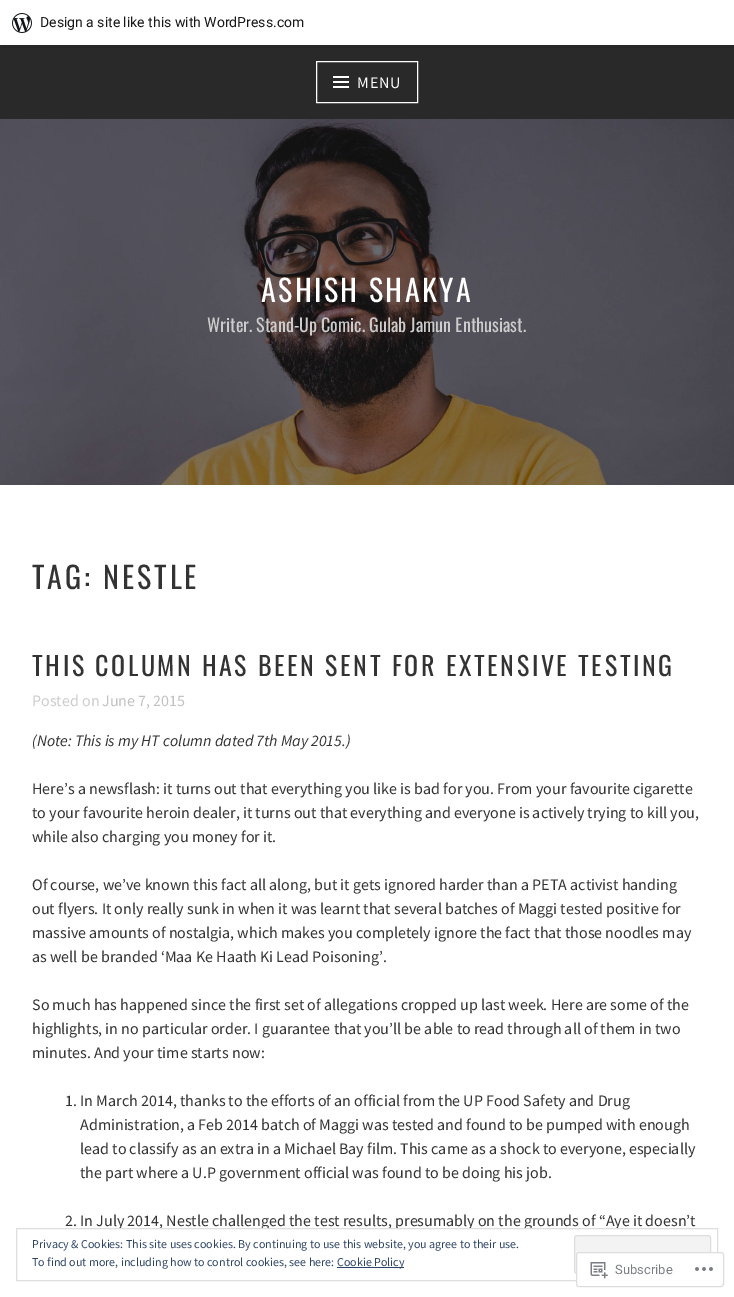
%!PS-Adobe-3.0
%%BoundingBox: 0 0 734 1297
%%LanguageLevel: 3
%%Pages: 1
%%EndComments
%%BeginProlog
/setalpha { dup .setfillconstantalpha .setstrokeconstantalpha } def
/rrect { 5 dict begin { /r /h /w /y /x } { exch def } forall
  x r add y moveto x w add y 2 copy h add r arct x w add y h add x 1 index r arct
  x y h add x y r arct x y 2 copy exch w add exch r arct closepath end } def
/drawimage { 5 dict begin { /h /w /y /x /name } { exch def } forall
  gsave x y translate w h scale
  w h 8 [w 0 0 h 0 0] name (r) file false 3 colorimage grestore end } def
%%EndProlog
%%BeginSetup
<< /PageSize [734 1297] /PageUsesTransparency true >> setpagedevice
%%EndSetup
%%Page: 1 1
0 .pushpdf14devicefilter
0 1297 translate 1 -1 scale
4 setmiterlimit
1 setgray
0 0 734 1297 rectfill
0.161 0.161 0.165 setrgbcolor
0 45 734 74 rectfill
0.149 0.149 0.153 setrgbcolor
newpath 1 45 moveto 1 48 lineto 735 48 lineto 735 3 lineto 734 3 lineto 734 45 lineto closepath fill
(images/1.raw) 12 13 20 20 drawimage
1 setgray
316.5 61.5 101 41 rectstroke
(images/2.raw) 333 76 16 12 drawimage
(images/3.raw) 0 119 734 366 drawimage
/Roboto-Regular [14 0 0 -14 0 0] selectfont
0.09 setgray
40 27 moveto (Design a site like this with WordPress.com) show
/SourceSansPro-Regular [16 0 0 -16 0 0] selectfont
1 setgray
357 88 moveto 1 0 (MENU) ashow
/Oswald-Regular [30 0 0 -30 0 0] selectfont
261 302 moveto 2.4 0 (ASHISH SHAKYA) ashow
/Oswald-Regular [18 0 0 -18 0 0] selectfont
0.8 setgray
207 332 moveto (Writer. Stand-Up Comic. Gulab Jamun Enthusiast.) show
/Oswald-Regular [30 0 0 -30 0 0] selectfont
0.2 setgray
32 589 moveto 3 0 (TAG: NESTLE) ashow
/Oswald-Regular [26 0 0 -26 0 0] selectfont
32 676 moveto 2.6 0 (THIS COLUMN HAS BEEN SENT FOR EXTENSIVE TESTING) ashow
/SourceSansPro-Regular [16 0 0 -16 0 0] selectfont
0.8 setgray
32 706 moveto (Posted on) show
0.761 setgray
102 706 moveto (June 7, 2015) show
/SourceSansPro-Italic [16 0 0 -16 0 0] selectfont
0.2 setgray
32 746 moveto (\(Note: This is my HT column dated 7th May 2015.\)) show
/SourceSansPro-Regular [16 0 0 -16 0 0] selectfont
32 794 moveto (Here’s a newsflash: it turns out that everything you like is bad for you. From your favourite cigarette) show
32 818 moveto (to your favourite heroin dealer, it turns out that everything and everyone is actively trying to kill you,) show
32 842 moveto (while also charging you money for it.) show
32 890 moveto (Of course, we’ve known this fact all along, but it gets ignored harder than a PETA activist handing) show
32 914 moveto (out flyers. It only really sunk in when it was learnt that several batches of Maggi tested positive for) show
32 938 moveto (massive amounts of nostalgia, which makes you completely ignore the fact that those noodles may) show
32 962 moveto (as well be branded ‘Maa Ke Haath Ki Lead Poisoning’.) show
32 1010 moveto (So much has happened since the first set of allegations cropped up last week. Here are some of the) show
32 1034 moveto (highlights, in no particular order. I guarantee that you’ll be able to read through all of them in two) show
32 1058 moveto (minutes. And your time starts now:) show
65 1106 moveto (1. In March 2014, thanks to the efforts of an official from the UP Food Safety and Drug) show
80 1130 moveto (Administration, a Feb 2014 batch of Maggi was tested and found to be pumped with enough) show
80 1154 moveto (lead to classify as an extra in a Michael Bay film. This came as a shock to everyone, especially) show
80 1178 moveto (the part where a U.P government official was found to be doing his job.) show
65 1226 moveto (2. In July 2014, Nestle challenged the test results, presumably on the grounds of “Aye it doesn’t) show
1 setgray
117 1229 500 1 rectfill
0.871 setgray
16.5 1228.5 701 52 rectstroke
/SourceSansPro-Regular [12 0 0 -12 0 0] selectfont
0.18 0.267 0.404 setrgbcolor
32 1248 moveto (Privacy & Cookies: This site uses cookies. By continuing to use this website, you agree to their use.) show
0.953 setgray
574.5 1235.5 136 38 2.5 rrect gsave fill grestore
0.871 setgray
stroke
0.18 0.267 0.404 setrgbcolor
32 1266 moveto (To find out more, including how to control cookies, see here:) show
337 1267 67 1 rectfill
337 1266 moveto (Cookie Policy) show
0.98 setalpha
1 setgray
576 1252 148 35 3 rrect fill
0.863 0.863 0.871 setrgbcolor
576.5 1252.5 147 34 2.5 rrect stroke
1 setalpha
(images/4.raw) 590 1262 18 17 drawimage
/Roboto-Regular [13 0 0 -13 0 0] selectfont
0.482 0.498 0.518 setrgbcolor
615 1274 moveto (Subscribe) show
(images/5.raw) 695 1267 18 4 drawimage
.poppdf14devicefilter showpage
%%EOF
